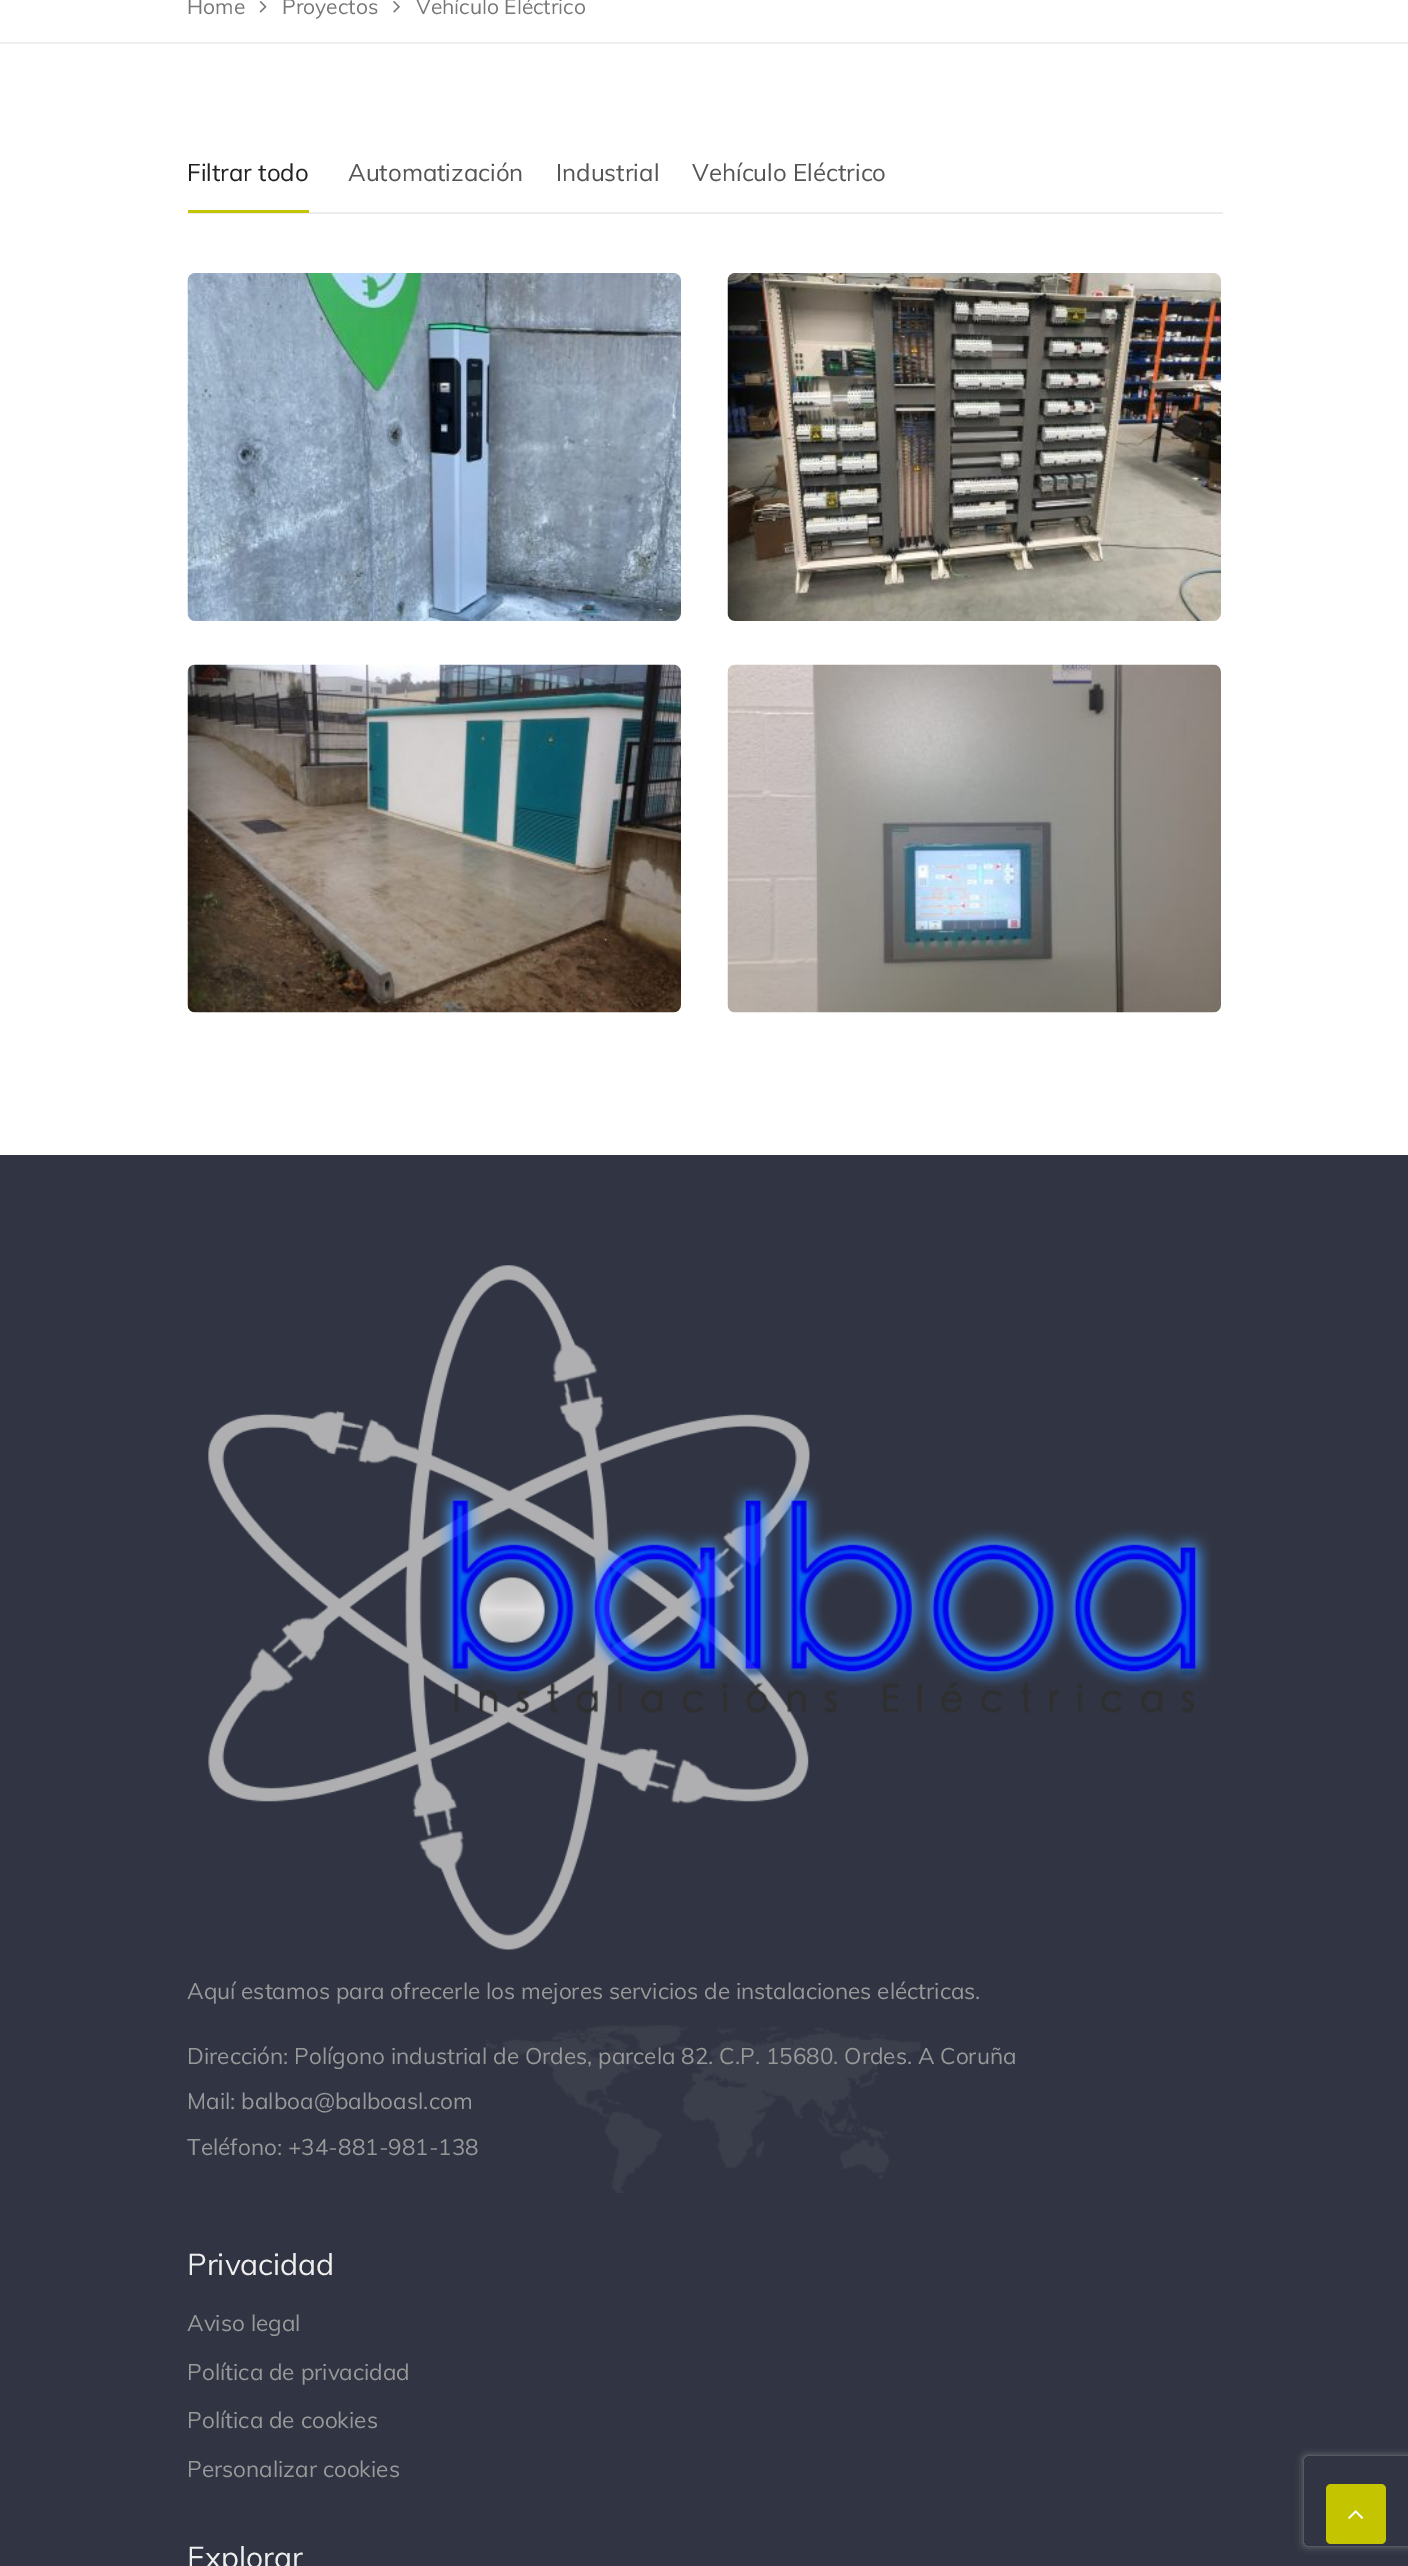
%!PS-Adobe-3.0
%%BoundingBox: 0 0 1408 2566
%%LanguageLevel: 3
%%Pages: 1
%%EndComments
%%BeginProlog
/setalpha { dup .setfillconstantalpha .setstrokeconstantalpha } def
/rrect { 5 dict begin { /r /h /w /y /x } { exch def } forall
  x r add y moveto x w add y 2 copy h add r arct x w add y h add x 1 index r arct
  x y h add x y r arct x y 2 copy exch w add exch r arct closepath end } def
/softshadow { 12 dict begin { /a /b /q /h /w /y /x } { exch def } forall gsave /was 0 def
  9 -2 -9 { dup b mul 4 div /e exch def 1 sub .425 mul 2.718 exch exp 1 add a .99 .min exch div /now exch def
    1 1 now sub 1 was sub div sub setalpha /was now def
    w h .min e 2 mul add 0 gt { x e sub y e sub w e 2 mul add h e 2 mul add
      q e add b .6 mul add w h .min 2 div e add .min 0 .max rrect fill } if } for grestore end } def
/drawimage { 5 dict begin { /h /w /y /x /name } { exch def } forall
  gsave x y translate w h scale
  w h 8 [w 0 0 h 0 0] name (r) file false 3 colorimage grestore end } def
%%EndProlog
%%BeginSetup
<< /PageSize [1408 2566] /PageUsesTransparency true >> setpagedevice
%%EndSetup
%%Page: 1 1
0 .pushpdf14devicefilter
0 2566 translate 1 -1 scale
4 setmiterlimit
1 setgray
0 0 1408 2566 rectfill
0.933 setgray
0 42 1408 2 rectfill
(images/1.raw) 259 1 8 12 drawimage
(images/2.raw) 393 1 7 12 drawimage
0.925 setgray
188 212 1035 2 rectfill
0.769 0.769 0 setrgbcolor
188 210 121 3 rectfill
(images/3.raw) 187 273 494 348 drawimage
(images/4.raw) 727 273 494 348 drawimage
(images/5.raw) 187 664 494 349 drawimage
(images/6.raw) 727 664 494 349 drawimage
0.192 0.208 0.263 setrgbcolor
0 1155 1408 1411 rectfill
(images/7.raw) 208 1265 1003 685 drawimage
(images/8.raw) 486 2025 435 168 drawimage
gsave
newpath 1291 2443 moveto 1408 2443 lineto 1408 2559 lineto 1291 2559 lineto closepath 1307 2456 moveto 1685 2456 lineto 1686.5 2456 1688 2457.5 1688 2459 curveto 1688 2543 lineto 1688 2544.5 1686.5 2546 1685 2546 curveto 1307 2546 lineto 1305.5 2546 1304 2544.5 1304 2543 curveto 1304 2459 lineto 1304 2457.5 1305.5 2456 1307 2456 curveto closepath eoclip newpath
0.502 setgray
1304 2456 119 90 3 4 1 softshadow
grestore
0.769 0.769 0 setrgbcolor
1326 2484 60 60 5 rrect fill
(images/9.raw) 1348 2510 16 9 drawimage
/Muli-Regular [21 0 0 -21 0 0] selectfont
0.467 setgray
187 14 moveto (Home) show
282 14 moveto (Proyectos) show
416 14 moveto (Vehículo Eléctrico) show
/Muli-Regular [24 0 0 -24 0 0] selectfont
0.133 setgray
187 181 moveto (Filtrar todo) show
0.333 setgray
348 181 moveto (Automatización) show
556 181 moveto (Industrial) show
692 181 moveto (Vehículo Eléctrico) show
/Muli-Regular [22.5 0 0 -22.5 0 0] selectfont
0.6 setgray
187 1999 moveto (Aquí estamos para ofrecerle los mejores servicios de instalaciones eléctricas.) show
187 2064 moveto (Dirección: Polígono industrial de Ordes, parcela 82. C.P. 15680. Ordes. A Coruña) show
187 2109 moveto (Mail: balboa@balboasl.com) show
187 2155 moveto (Teléfono: +34-881-981-138) show
/Muli-Regular [30 0 0 -30 0 0] selectfont
0.933 setgray
187 2275 moveto (Privacidad) show
/Muli-Regular [22.5 0 0 -22.5 0 0] selectfont
0.6 setgray
187 2331 moveto (Aviso legal) show
187 2380 moveto (Política de privacidad) show
187 2428 moveto (Política de cookies) show
187 2477 moveto (Personalizar cookies) show
/Muli-Regular [30 0 0 -30 0 0] selectfont
0.933 setgray
187 2568 moveto (Explorar) show
.poppdf14devicefilter showpage
%%EOF
